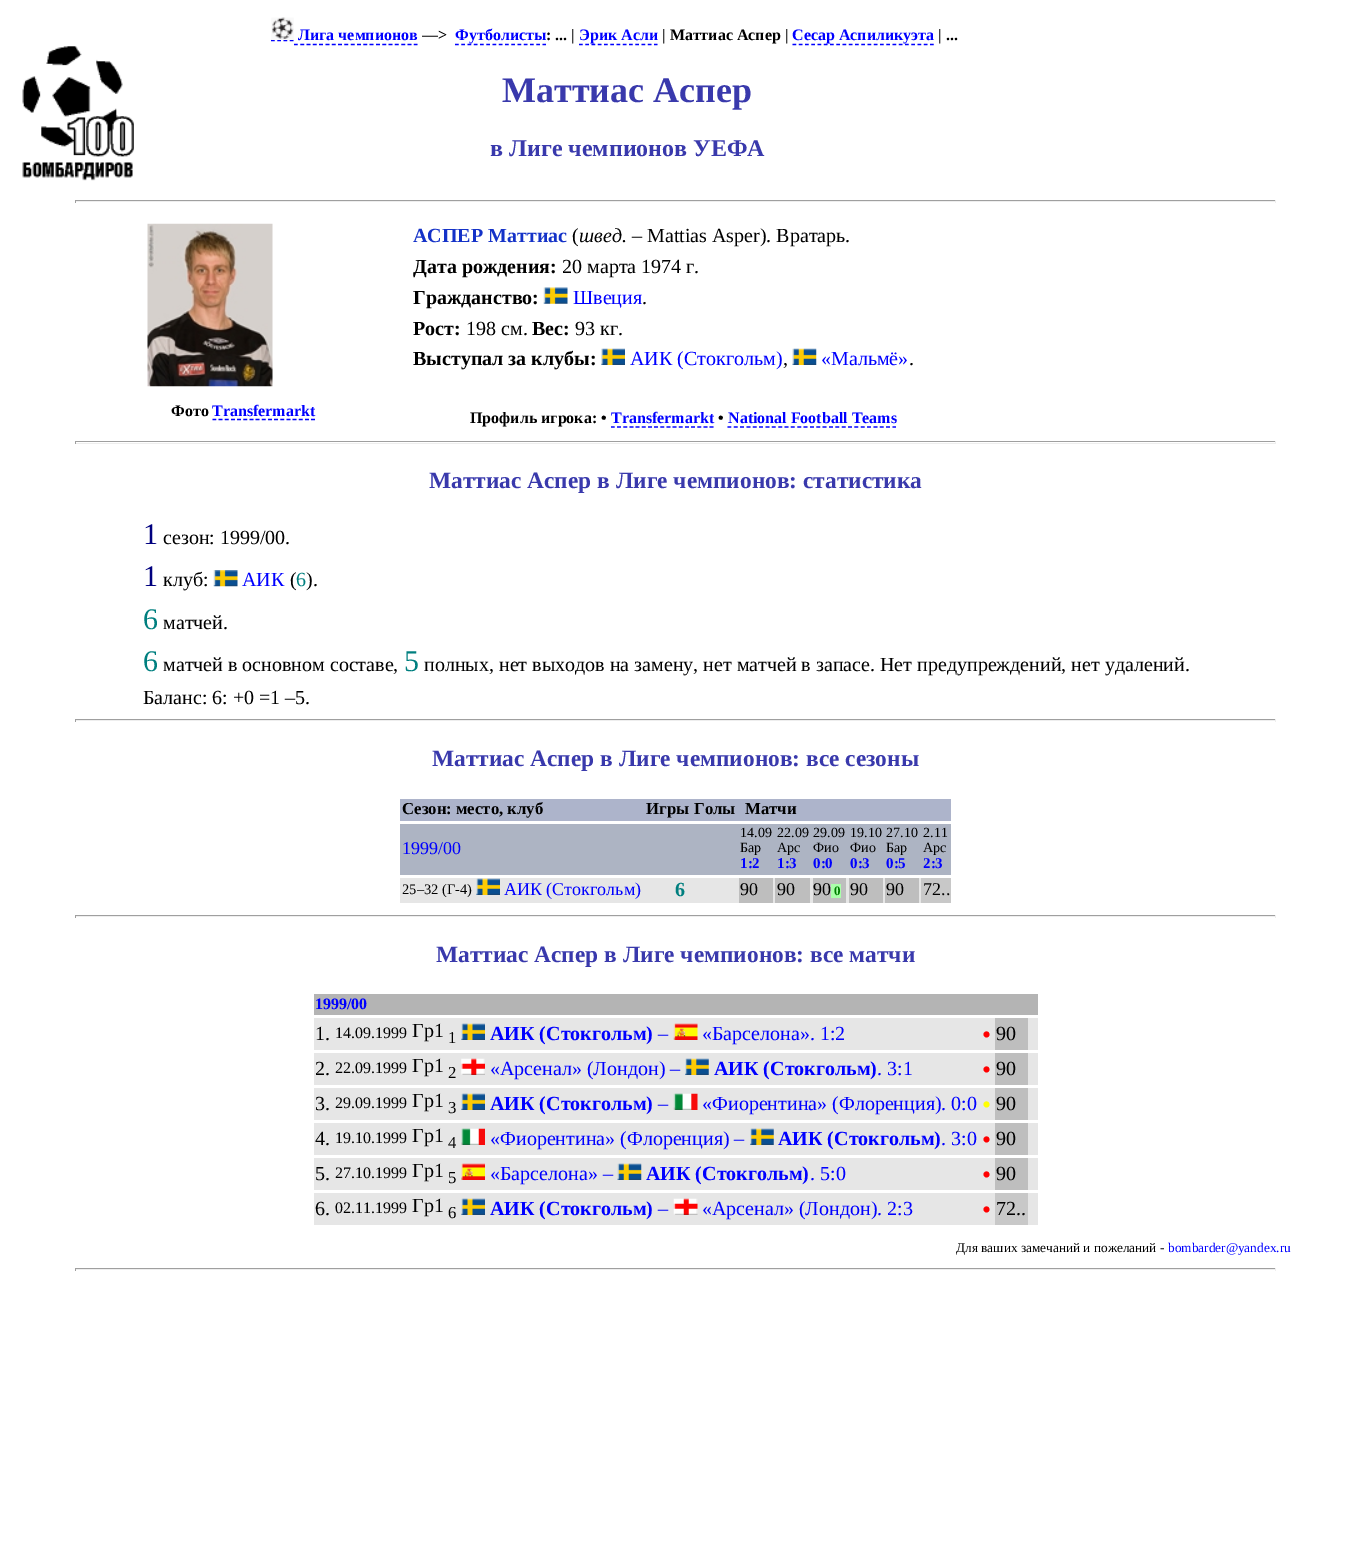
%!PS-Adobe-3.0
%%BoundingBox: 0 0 1351 1548
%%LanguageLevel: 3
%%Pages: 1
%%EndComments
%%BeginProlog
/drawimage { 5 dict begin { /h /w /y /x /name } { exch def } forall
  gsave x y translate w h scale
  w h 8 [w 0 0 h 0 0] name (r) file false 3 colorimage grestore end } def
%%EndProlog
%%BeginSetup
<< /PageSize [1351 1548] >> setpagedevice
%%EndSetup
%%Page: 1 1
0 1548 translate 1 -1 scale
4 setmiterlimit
1 setgray
0 0 1351 1548 rectfill
(images/1.raw) 22 46 112 135 drawimage
0 0 1 setrgbcolor
1.2 setlinewidth
[3.75 2.5] 0 setdash
newpath 271 40.5 moveto 294 40.5 lineto stroke
(images/2.raw) 271 17 23 23 drawimage
[3.75 2.56] 0 setdash
newpath 294 44.5 moveto 417.5 44.5 lineto stroke
[3.75 2.5] 0 setdash
newpath 455 44.5 moveto 546 44.5 lineto stroke
newpath 579 44.5 moveto 657.5 44.5 lineto stroke
newpath 792.5 44.5 moveto 934 44.5 lineto stroke
0.624 setgray
75 200 1201 1 rectfill
0.933 setgray
1275 200 1 3 rectfill
75 201 1201 1 rectfill
0.624 setgray
75 200 1 3 rectfill
(images/3.raw) 147 223 126 164 drawimage
0 0 1 setrgbcolor
[3.75 2.42] 0 setdash
newpath 212.5 419.5 moveto 315 419.5 lineto stroke
(images/4.raw) 543 287 25 17 drawimage
(images/5.raw) 601 348 24 17 drawimage
(images/6.raw) 792 348 25 17 drawimage
newpath 611 427 moveto 714 427 lineto stroke
[3.75 2.6] 0 setdash
newpath 727.5 427 moveto 896 427 lineto stroke
0.624 setgray
75 441 1201 1 rectfill
0.933 setgray
1275 441 1 3 rectfill
75 443 1201 1 rectfill
0.624 setgray
75 441 1 3 rectfill
(images/7.raw) 213 570 25 17 drawimage
75 719 1201 1 rectfill
0.933 setgray
1275 719 1 3 rectfill
75 720 1201 1 rectfill
0.624 setgray
75 719 1 3 rectfill
0.678 0.706 0.796 setrgbcolor
400 799 551 22 rectfill
0.678 0.706 0.765 setrgbcolor
400 824 551 51 rectfill
0.902 setgray
400 878 521 25 rectfill
(images/8.raw) 476 878 24 17 drawimage
0.745 setgray
739 878 34 25 rectfill
775 878 35 25 rectfill
813 878 33 25 rectfill
0.667 1 0.667 setrgbcolor
831 884 10 14 rectfill
0.745 setgray
849 878 34 25 rectfill
885 878 34 25 rectfill
0.784 setgray
921 878 30 25 rectfill
0.624 setgray
75 915 1201 1 rectfill
0.933 setgray
1275 915 1 3 rectfill
75 916 1201 1 rectfill
0.624 setgray
75 915 1 3 rectfill
0.706 setgray
314 994 724 21 rectfill
0.902 setgray
314 1018 724 32 rectfill
(images/8.raw) 461 1023 24 17 drawimage
(images/9.raw) 673 1023 25 17 drawimage
0.745 setgray
995 1018 33 32 rectfill
0.902 setgray
314 1053 724 32 rectfill
(images/10.raw) 461 1058 24 17 drawimage
(images/11.raw) 685 1058 24 17 drawimage
0.745 setgray
995 1053 33 32 rectfill
0.902 setgray
314 1088 724 32 rectfill
(images/8.raw) 461 1093 24 17 drawimage
(images/12.raw) 673 1093 25 17 drawimage
0.745 setgray
995 1088 33 32 rectfill
0.902 setgray
314 1123 724 32 rectfill
(images/13.raw) 461 1128 24 17 drawimage
(images/14.raw) 750 1128 24 17 drawimage
0.745 setgray
995 1123 33 32 rectfill
0.902 setgray
314 1158 724 32 rectfill
(images/15.raw) 461 1163 24 17 drawimage
(images/16.raw) 617 1163 25 17 drawimage
0.745 setgray
995 1158 33 32 rectfill
0.902 setgray
314 1193 724 32 rectfill
(images/8.raw) 461 1198 24 17 drawimage
(images/17.raw) 673 1198 25 17 drawimage
0.784 setgray
995 1193 33 32 rectfill
0.624 setgray
75 1268 1201 1 rectfill
0.933 setgray
1275 1268 1 3 rectfill
75 1269 1201 1 rectfill
0.624 setgray
75 1268 1 3 rectfill
/LiberationSerif-Bold [16 0 0 -16 0 0] selectfont
0 0 1 setrgbcolor
298 40 moveto (Лига чемпионов) show
0 setgray
422 40 moveto (—>) show
0 0 1 setrgbcolor
455 40 moveto (Футболисты) show
0 setgray
546 40 moveto (: ... |) show
0 0 1 setrgbcolor
579 40 moveto (Эрик Асли) show
0 setgray
662 40 moveto (| Маттиас Аспер |) show
0 0 1 setrgbcolor
792 40 moveto (Сесар Аспиликуэта) show
0 setgray
938 40 moveto (| ...) show
/LiberationSerif-Bold [36 0 0 -36 0 0] selectfont
0.224 0.224 0.675 setrgbcolor
502 102 moveto (Маттиас Аспер) show
/LiberationSerif-Bold [24 0 0 -24 0 0] selectfont
490 156 moveto (в Лиге чемпионов УЕФА) show
/LiberationSerif-Bold [16 0 0 -16 0 0] selectfont
0 setgray
171 416 moveto (Фото) show
0 0 1 setrgbcolor
212 416 moveto (Transfermarkt) show
/LiberationSerif-Bold [20 0 0 -20 0 0] selectfont
0.078 0.196 0.784 setrgbcolor
413 242 moveto (АСПЕР Маттиас) show
/LiberationSerif-Regular [20 0 0 -20 0 0] selectfont
0 setgray
572 242 moveto (\() show
/LiberationSerif-Italic [20 0 0 -20 0 0] selectfont
579 242 moveto (швед.) show
/LiberationSerif-Regular [20 0 0 -20 0 0] selectfont
632 242 moveto (– Mattias Asper\). Вратарь.) show
/LiberationSerif-Bold [20 0 0 -20 0 0] selectfont
413 273 moveto (Дата рождения:) show
/LiberationSerif-Regular [20 0 0 -20 0 0] selectfont
562 273 moveto (20 марта 1974 г.) show
/LiberationSerif-Bold [20 0 0 -20 0 0] selectfont
413 304 moveto (Гражданство:) show
/LiberationSerif-Regular [20 0 0 -20 0 0] selectfont
0 0 1 setrgbcolor
573 304 moveto (Швеция) show
0 setgray
642 304 moveto (.) show
/LiberationSerif-Bold [20 0 0 -20 0 0] selectfont
413 335 moveto (Рост:) show
/LiberationSerif-Regular [20 0 0 -20 0 0] selectfont
466 335 moveto (198 см.) show
/LiberationSerif-Bold [20 0 0 -20 0 0] selectfont
532 335 moveto (Вес:) show
/LiberationSerif-Regular [20 0 0 -20 0 0] selectfont
575 335 moveto (93 кг.) show
/LiberationSerif-Bold [20 0 0 -20 0 0] selectfont
413 365 moveto (Выступал за клубы:) show
/LiberationSerif-Regular [20 0 0 -20 0 0] selectfont
0 0 1 setrgbcolor
630 365 moveto (АИК \(Стокгольм\)) show
0 setgray
783 365 moveto (,) show
0 0 1 setrgbcolor
821 365 moveto («Мальмё») show
0 setgray
909 365 moveto (.) show
/LiberationSerif-Bold [16 0 0 -16 0 0] selectfont
470 423 moveto (Профиль игрока: •) show
0 0 1 setrgbcolor
611 423 moveto (Transfermarkt) show
0 setgray
718 423 moveto (•) show
0 0 1 setrgbcolor
728 423 moveto (National Football Teams) show
/LiberationSerif-Bold [23.4 0 0 -23.4 0 0] selectfont
0.224 0.224 0.675 setrgbcolor
429 488 moveto (Маттиас Аспер в Лиге чемпионов: статистика) show
/LiberationSerif-Regular [30 0 0 -30 0 0] selectfont
0 0 0.498 setrgbcolor
143 544 moveto (1) show
/LiberationSerif-Regular [20 0 0 -20 0 0] selectfont
0 setgray
163 544 moveto (сезон: 1999/00.) show
/LiberationSerif-Regular [30 0 0 -30 0 0] selectfont
0 0 0.498 setrgbcolor
143 586 moveto (1) show
/LiberationSerif-Regular [20 0 0 -20 0 0] selectfont
0 setgray
163 586 moveto (клуб:) show
0 0 1 setrgbcolor
242 586 moveto (АИК) show
0 setgray
290 586 moveto (\() show
0 0.498 0.498 setrgbcolor
296 586 moveto (6) show
0 setgray
306 586 moveto (\).) show
/LiberationSerif-Regular [30 0 0 -30 0 0] selectfont
0 0.498 0.498 setrgbcolor
143 629 moveto (6) show
/LiberationSerif-Regular [20 0 0 -20 0 0] selectfont
0 setgray
163 629 moveto (матчей.) show
/LiberationSerif-Regular [30 0 0 -30 0 0] selectfont
0 0.498 0.498 setrgbcolor
143 671 moveto (6) show
/LiberationSerif-Regular [20 0 0 -20 0 0] selectfont
0 setgray
163 671 moveto (матчей в основном составе,) show
/LiberationSerif-Regular [30 0 0 -30 0 0] selectfont
0 0.498 0.498 setrgbcolor
404 671 moveto (5) show
/LiberationSerif-Regular [20 0 0 -20 0 0] selectfont
0 setgray
424 671 moveto (полных, нет выходов на замену, нет матчей в запасе. Нет предупреждений, нет удалений.) show
143 704 moveto (Баланс: 6: +0 =1 –5.) show
/LiberationSerif-Bold [23.4 0 0 -23.4 0 0] selectfont
0.224 0.224 0.675 setrgbcolor
432 766 moveto (Маттиас Аспер в Лиге чемпионов: все сезоны) show
/LiberationSerif-Bold [16.75 0 0 -16.75 0 0] selectfont
0 setgray
402 814 moveto (Сезон: место, клуб) show
646 814 moveto (Игры) show
694 814 moveto (Голы) show
745 814 moveto (Матчи) show
/LiberationSerif-Regular [18 0 0 -18 0 0] selectfont
0 0 1 setrgbcolor
402 854 moveto (1999/00) show
/LiberationSerif-Regular [14 0 0 -14 0 0] selectfont
0 setgray
740 837 moveto (14.09) show
740 852 moveto (Бар) show
/LiberationSerif-Bold [15 0 0 -15 0 0] selectfont
0 0 1 setrgbcolor
740 868 moveto (1:2) show
/LiberationSerif-Regular [14 0 0 -14 0 0] selectfont
0 setgray
777 837 moveto (22.09) show
777 852 moveto (Арс) show
/LiberationSerif-Bold [15 0 0 -15 0 0] selectfont
0 0 1 setrgbcolor
777 868 moveto (1:3) show
/LiberationSerif-Regular [14 0 0 -14 0 0] selectfont
0 setgray
813 837 moveto (29.09) show
813 852 moveto (Фио) show
/LiberationSerif-Bold [15 0 0 -15 0 0] selectfont
0 0 1 setrgbcolor
813 868 moveto (0:0) show
/LiberationSerif-Regular [14 0 0 -14 0 0] selectfont
0 setgray
850 837 moveto (19.10) show
850 852 moveto (Фио) show
/LiberationSerif-Bold [15 0 0 -15 0 0] selectfont
0 0 1 setrgbcolor
850 868 moveto (0:3) show
/LiberationSerif-Regular [14 0 0 -14 0 0] selectfont
0 setgray
886 837 moveto (27.10) show
886 852 moveto (Бар) show
/LiberationSerif-Bold [15 0 0 -15 0 0] selectfont
0 0 1 setrgbcolor
886 868 moveto (0:5) show
/LiberationSerif-Regular [14 0 0 -14 0 0] selectfont
0 setgray
923 837 moveto (2.11) show
923 852 moveto (Арс) show
/LiberationSerif-Bold [15 0 0 -15 0 0] selectfont
0 0 1 setrgbcolor
923 868 moveto (2:3) show
/LiberationSerif-Regular [14.5 0 0 -14.5 0 0] selectfont
0 setgray
402 894 moveto (25–32 \(Г-4\)) show
/LiberationSerif-Regular [18 0 0 -18 0 0] selectfont
0 0 1 setrgbcolor
504 895 moveto (АИК \(Стокгольм\)) show
/LiberationSerif-Bold [20 0 0 -20 0 0] selectfont
0 0.498 0.498 setrgbcolor
675 896 moveto (6) show
/LiberationSerif-Regular [18 0 0 -18 0 0] selectfont
0 setgray
740 895 moveto (90) show
777 895 moveto (90) show
813 895 moveto (90) show
/LiberationSerif-Bold [13 0 0 -13 0 0] selectfont
0 0.498 0 setrgbcolor
834 895 moveto (0) show
/LiberationSerif-Regular [18 0 0 -18 0 0] selectfont
0 setgray
850 895 moveto (90) show
886 895 moveto (90) show
923 895 moveto (72..) show
/LiberationSerif-Bold [23.4 0 0 -23.4 0 0] selectfont
0.224 0.224 0.675 setrgbcolor
436 962 moveto (Маттиас Аспер в Лиге чемпионов: все матчи) show
/LiberationSerif-Bold [16 0 0 -16 0 0] selectfont
0 0 1 setrgbcolor
315 1009 moveto (1999/00) show
/LiberationSerif-Regular [20 0 0 -20 0 0] selectfont
0 setgray
315 1040 moveto (1.) show
/LiberationSerif-Regular [16 0 0 -16 0 0] selectfont
335 1038 moveto (14.09.1999) show
/LiberationSerif-Regular [20 0 0 -20 0 0] selectfont
412 1037 moveto (Гр1) show
/LiberationSerif-Regular [16.75 0 0 -16.75 0 0] selectfont
448 1043 moveto (1) show
/LiberationSerif-Bold [20 0 0 -20 0 0] selectfont
0 0 1 setrgbcolor
490 1040 moveto (АИК \(Стокгольм\)) show
/LiberationSerif-Regular [20 0 0 -20 0 0] selectfont
658 1040 moveto (–) show
702 1040 moveto («Барселона». 1:2) show
/LiberationSerif-Regular [26 0 0 -26 0 0] selectfont
1 0 0 setrgbcolor
982 1043 moveto (•) show
/LiberationSerif-Regular [20 0 0 -20 0 0] selectfont
0 setgray
996 1040 moveto (90) show
315 1075 moveto (2.) show
/LiberationSerif-Regular [16 0 0 -16 0 0] selectfont
335 1073 moveto (22.09.1999) show
/LiberationSerif-Regular [20 0 0 -20 0 0] selectfont
412 1072 moveto (Гр1) show
/LiberationSerif-Regular [16.75 0 0 -16.75 0 0] selectfont
448 1078 moveto (2) show
/LiberationSerif-Regular [20 0 0 -20 0 0] selectfont
0 0 1 setrgbcolor
490 1075 moveto («Арсенал» \(Лондон\) –) show
/LiberationSerif-Bold [20 0 0 -20 0 0] selectfont
714 1075 moveto (АИК \(Стокгольм\)) show
/LiberationSerif-Regular [20 0 0 -20 0 0] selectfont
877 1075 moveto (. 3:1) show
/LiberationSerif-Regular [26 0 0 -26 0 0] selectfont
1 0 0 setrgbcolor
982 1078 moveto (•) show
/LiberationSerif-Regular [20 0 0 -20 0 0] selectfont
0 setgray
996 1075 moveto (90) show
315 1110 moveto (3.) show
/LiberationSerif-Regular [16 0 0 -16 0 0] selectfont
335 1108 moveto (29.09.1999) show
/LiberationSerif-Regular [20 0 0 -20 0 0] selectfont
412 1107 moveto (Гр1) show
/LiberationSerif-Regular [16.75 0 0 -16.75 0 0] selectfont
448 1113 moveto (3) show
/LiberationSerif-Bold [20 0 0 -20 0 0] selectfont
0 0 1 setrgbcolor
490 1110 moveto (АИК \(Стокгольм\)) show
/LiberationSerif-Regular [20 0 0 -20 0 0] selectfont
658 1110 moveto (–) show
702 1110 moveto («Фиорентина» \(Флоренция\). 0:0) show
/LiberationSerif-Regular [26 0 0 -26 0 0] selectfont
1 1 0 setrgbcolor
982 1113 moveto (•) show
/LiberationSerif-Regular [20 0 0 -20 0 0] selectfont
0 setgray
996 1110 moveto (90) show
315 1145 moveto (4.) show
/LiberationSerif-Regular [16 0 0 -16 0 0] selectfont
335 1143 moveto (19.10.1999) show
/LiberationSerif-Regular [20 0 0 -20 0 0] selectfont
412 1142 moveto (Гр1) show
/LiberationSerif-Regular [16.75 0 0 -16.75 0 0] selectfont
448 1148 moveto (4) show
/LiberationSerif-Regular [20 0 0 -20 0 0] selectfont
0 0 1 setrgbcolor
490 1145 moveto («Фиорентина» \(Флоренция\) –) show
/LiberationSerif-Bold [20 0 0 -20 0 0] selectfont
778 1145 moveto (АИК \(Стокгольм\)) show
/LiberationSerif-Regular [20 0 0 -20 0 0] selectfont
941 1145 moveto (. 3:0) show
/LiberationSerif-Regular [26 0 0 -26 0 0] selectfont
1 0 0 setrgbcolor
982 1148 moveto (•) show
/LiberationSerif-Regular [20 0 0 -20 0 0] selectfont
0 setgray
996 1145 moveto (90) show
315 1180 moveto (5.) show
/LiberationSerif-Regular [16 0 0 -16 0 0] selectfont
335 1178 moveto (27.10.1999) show
/LiberationSerif-Regular [20 0 0 -20 0 0] selectfont
412 1177 moveto (Гр1) show
/LiberationSerif-Regular [16.75 0 0 -16.75 0 0] selectfont
448 1183 moveto (5) show
/LiberationSerif-Regular [20 0 0 -20 0 0] selectfont
0 0 1 setrgbcolor
490 1180 moveto («Барселона» –) show
/LiberationSerif-Bold [20 0 0 -20 0 0] selectfont
646 1180 moveto (АИК \(Стокгольм\)) show
/LiberationSerif-Regular [20 0 0 -20 0 0] selectfont
810 1180 moveto (. 5:0) show
/LiberationSerif-Regular [26 0 0 -26 0 0] selectfont
1 0 0 setrgbcolor
982 1183 moveto (•) show
/LiberationSerif-Regular [20 0 0 -20 0 0] selectfont
0 setgray
996 1180 moveto (90) show
315 1215 moveto (6.) show
/LiberationSerif-Regular [16 0 0 -16 0 0] selectfont
335 1213 moveto (02.11.1999) show
/LiberationSerif-Regular [20 0 0 -20 0 0] selectfont
412 1212 moveto (Гр1) show
/LiberationSerif-Regular [16.75 0 0 -16.75 0 0] selectfont
448 1218 moveto (6) show
/LiberationSerif-Bold [20 0 0 -20 0 0] selectfont
0 0 1 setrgbcolor
490 1215 moveto (АИК \(Стокгольм\)) show
/LiberationSerif-Regular [20 0 0 -20 0 0] selectfont
658 1215 moveto (–) show
702 1215 moveto («Арсенал» \(Лондон\). 2:3) show
/LiberationSerif-Regular [26 0 0 -26 0 0] selectfont
1 0 0 setrgbcolor
982 1218 moveto (•) show
/LiberationSerif-Regular [20 0 0 -20 0 0] selectfont
0 setgray
996 1215 moveto (72..) show
/LiberationSerif-Regular [13.3 0 0 -13.3 0 0] selectfont
956 1252 moveto (Для ваших замечаний и пожеланий -) show
0 0 1 setrgbcolor
1168 1252 moveto (bombarder@yandex.ru) show
showpage
%%EOF
